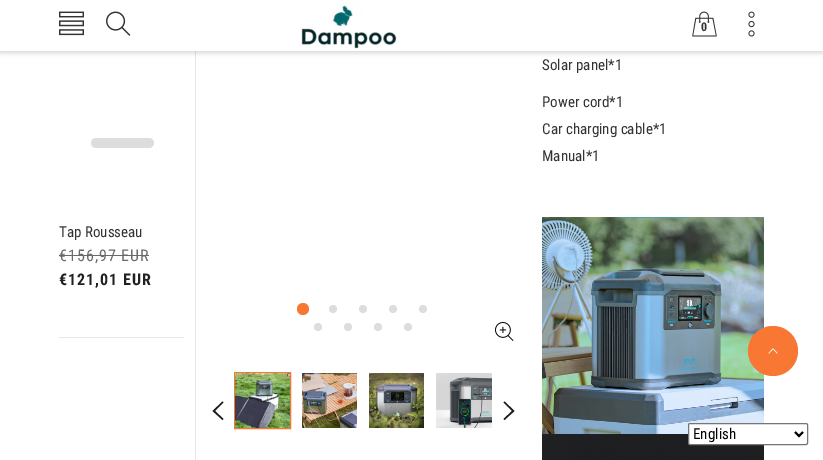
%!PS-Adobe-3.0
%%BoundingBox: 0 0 823 460
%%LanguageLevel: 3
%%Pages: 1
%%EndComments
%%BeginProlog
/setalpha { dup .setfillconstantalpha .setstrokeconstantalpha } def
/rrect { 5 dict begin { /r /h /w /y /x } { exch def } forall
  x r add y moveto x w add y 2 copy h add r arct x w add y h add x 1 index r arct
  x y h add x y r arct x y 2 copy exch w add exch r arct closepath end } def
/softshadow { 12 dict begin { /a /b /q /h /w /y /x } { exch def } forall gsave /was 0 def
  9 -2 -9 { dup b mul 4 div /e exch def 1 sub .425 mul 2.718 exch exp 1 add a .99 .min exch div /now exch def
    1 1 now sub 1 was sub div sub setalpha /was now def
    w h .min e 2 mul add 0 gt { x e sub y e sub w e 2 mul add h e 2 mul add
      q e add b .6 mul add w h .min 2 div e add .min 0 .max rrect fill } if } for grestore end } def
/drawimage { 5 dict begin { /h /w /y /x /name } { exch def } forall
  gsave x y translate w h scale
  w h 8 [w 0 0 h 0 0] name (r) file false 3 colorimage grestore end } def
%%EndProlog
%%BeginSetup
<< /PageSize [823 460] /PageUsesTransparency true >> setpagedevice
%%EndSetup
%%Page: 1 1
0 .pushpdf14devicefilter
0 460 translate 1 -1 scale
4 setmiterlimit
1 setgray
0 0 823 460 rectfill
0.902 setgray
195 51 1 409 rectfill
0 setgray
0 2 823 51 0 2.5 0.15 softshadow
1 setgray
0 0 823 51 rectfill
(images/1.raw) 59 11 25 25 drawimage
(images/2.raw) 106 11 25 25 drawimage
(images/3.raw) 299 2 100 49 drawimage
(images/4.raw) 692 11 25 26 drawimage
(images/5.raw) 748 11 7 26 drawimage
(images/6.raw) 542 217 222 217 drawimage
(images/7.raw) 542 434 222 26 drawimage
0.973 0.467 0.2 setrgbcolor
newpath 303 309 6 0 360 arc closepath fill
0.867 setgray
newpath 333 309 4 0 360 arc closepath fill
newpath 363 309 4 0 360 arc closepath fill
newpath 393 309 4 0 360 arc closepath fill
newpath 423 309 4 0 360 arc closepath fill
newpath 318 327 4 0 360 arc closepath fill
newpath 348 327 4 0 360 arc closepath fill
newpath 378 327 4 0 360 arc closepath fill
newpath 408 327 4 0 360 arc closepath fill
(images/8.raw) 495 322 19 19 drawimage
0.102 setgray
newpath 223.5 402.5 moveto 222.5 401.5 lineto 212.5 411 lineto 222.5 420 lineto 223.5 419 lineto 215 411 lineto closepath fill
0.973 0.467 0.2 setrgbcolor
234.5 372.5 56 56 rectstroke
(images/9.raw) 235 373 55 55 drawimage
(images/10.raw) 302 373 55 55 drawimage
(images/11.raw) 369 373 55 55 drawimage
(images/12.raw) 436 373 56 55 drawimage
0.102 setgray
newpath 503.5 402.5 moveto 504.5 401.5 lineto 514.5 411 lineto 504.5 420 lineto 503.5 419 lineto 512 411 lineto closepath fill
0.902 setgray
59 337 125 1 rectfill
0.867 setgray
91 138 63 10 5 rrect fill
0.412 setgray
59 255 90 1 rectfill
0.973 0.467 0.2 setrgbcolor
newpath 773 351 25 0 360 arc closepath fill
(images/13.raw) 768 348 10 6 drawimage
1 setgray
688.5 423.5 119 21 1.5 rrect gsave fill grestore
0.463 setgray
stroke
0 setgray
2 setlinewidth
newpath 795 432 moveto 799 436 lineto 803 432 lineto stroke
/RobotoCondensed-Bold [12 0 0 -12 0 0] selectfont
0.2 setgray
701 31 moveto (0) show
/RobotoCondensed-Regular [15 0 0 -15 0 0] selectfont
542 70 moveto (Solar panel*1) show
542 107 moveto (Power cord*1) show
542 134 moveto (Car charging cable*1) show
542 161 moveto (Manual*1) show
59 237 moveto (Tap Rousseau) show
/RobotoCondensed-Regular [16 0 0 -16 0 0] selectfont
0.412 setgray
59 261 moveto 1 0 (€156,97 EUR) ashow
/RobotoCondensed-Bold [16 0 0 -16 0 0] selectfont
0.129 setgray
59 285 moveto 1 0 (€121,01 EUR) ashow
/RobotoCondensed-Regular [15 0 0 -15 0 0] selectfont
0 setgray
693 439 moveto (English) show
.poppdf14devicefilter showpage
%%EOF
